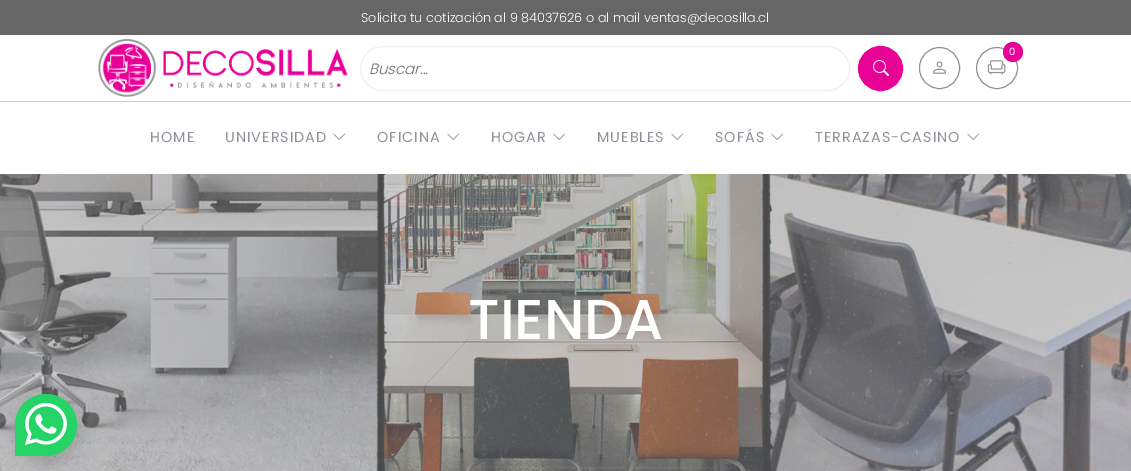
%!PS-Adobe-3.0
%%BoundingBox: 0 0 1131 471
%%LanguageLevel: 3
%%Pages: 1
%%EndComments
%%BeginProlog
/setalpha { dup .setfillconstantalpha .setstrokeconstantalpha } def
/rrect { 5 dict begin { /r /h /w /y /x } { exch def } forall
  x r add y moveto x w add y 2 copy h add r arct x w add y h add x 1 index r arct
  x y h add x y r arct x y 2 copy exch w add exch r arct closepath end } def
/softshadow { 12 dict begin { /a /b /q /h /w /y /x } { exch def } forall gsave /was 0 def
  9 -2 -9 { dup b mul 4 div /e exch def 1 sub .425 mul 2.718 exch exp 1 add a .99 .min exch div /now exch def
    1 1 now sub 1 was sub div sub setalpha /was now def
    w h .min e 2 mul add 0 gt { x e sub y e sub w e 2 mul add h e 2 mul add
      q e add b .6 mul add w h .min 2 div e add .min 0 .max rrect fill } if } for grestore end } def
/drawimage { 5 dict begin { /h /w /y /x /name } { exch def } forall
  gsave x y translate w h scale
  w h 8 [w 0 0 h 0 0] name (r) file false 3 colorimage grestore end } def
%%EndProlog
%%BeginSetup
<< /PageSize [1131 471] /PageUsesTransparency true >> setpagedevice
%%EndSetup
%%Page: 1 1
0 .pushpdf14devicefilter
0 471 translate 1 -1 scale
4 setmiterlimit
0.4 setgray
0 0 1131 471 rectfill
1 setgray
0 35 1131 66 rectfill
0.804 setgray
0 101 1131 1 rectfill
(images/1.raw) 98 39 250 58 drawimage
0.569 0.573 0.592 setrgbcolor
919.5 47.5 40 41 20 rrect stroke
(images/2.raw) 933 61 13 13 drawimage
newpath 997 68 20.5 0 360 arc closepath stroke
(images/3.raw) 987 60 19 15 drawimage
0.91 0.004 0.584 setrgbcolor
newpath 1013 52 10 0 360 arc closepath fill
0.941 setgray
360.5 46.5 489 44 22 rrect stroke
0.91 0.004 0.584 setrgbcolor
newpath 880.5 68.5 22 0 360 arc closepath gsave fill grestore
stroke
(images/4.raw) 873 60 16 16 drawimage
1 setgray
0 102 1131 72 rectfill
(images/5.raw) 333 133 12 7 drawimage
(images/5.raw) 447 133 12 7 drawimage
(images/5.raw) 553 133 12 7 drawimage
(images/5.raw) 671 133 12 7 drawimage
(images/5.raw) 771 133 12 7 drawimage
(images/5.raw) 967 133 12 7 drawimage
(images/6.raw) 0 174 1131 297 drawimage
0 setgray
15 402 62 62 31 8 0.15 softshadow
0.145 0.827 0.4 setrgbcolor
newpath 46 394 moveto 63 394 77 408 77 425 curveto 77 442 63 456 46 456 curveto 15 456 lineto 15 425 lineto 15 408 29 394 46 394 curveto closepath fill
(images/7.raw) 25 403 42 42 drawimage
/Poppins-Light [12.8 0 0 -12.8 0 0] selectfont
1 setgray
361 22 moveto (Solicita tu cotización al 9 84037626 o al mail ventas@decosilla.cl) show
/Poppins-Regular [10 0 0 -10 0 0] selectfont
1009 55 moveto (0) show
/Poppins-LightItalic [15 0 0 -15 0 0] selectfont
0.459 setgray
369 74 moveto (Buscar...) show
/Poppins-Regular [14.4 0 0 -14.4 0 0] selectfont
0.557 0.573 0.596 setrgbcolor
150 142 moveto 1 0 (HOME) ashow
225 142 moveto 1 0 (UNIVERSIDAD) ashow
377 142 moveto 1 0 (OFICINA) ashow
491 142 moveto 1 0 (HOGAR) ashow
597 142 moveto 1 0 (MUEBLES) ashow
715 142 moveto 1 0 (SOFÁS) ashow
815 142 moveto 1 0 (TERRAZAS-CASINO) ashow
/Poppins-Medium [56 0 0 -56 0 0] selectfont
1 setgray
468 339 moveto (TIENDA) show
.poppdf14devicefilter showpage
%%EOF
